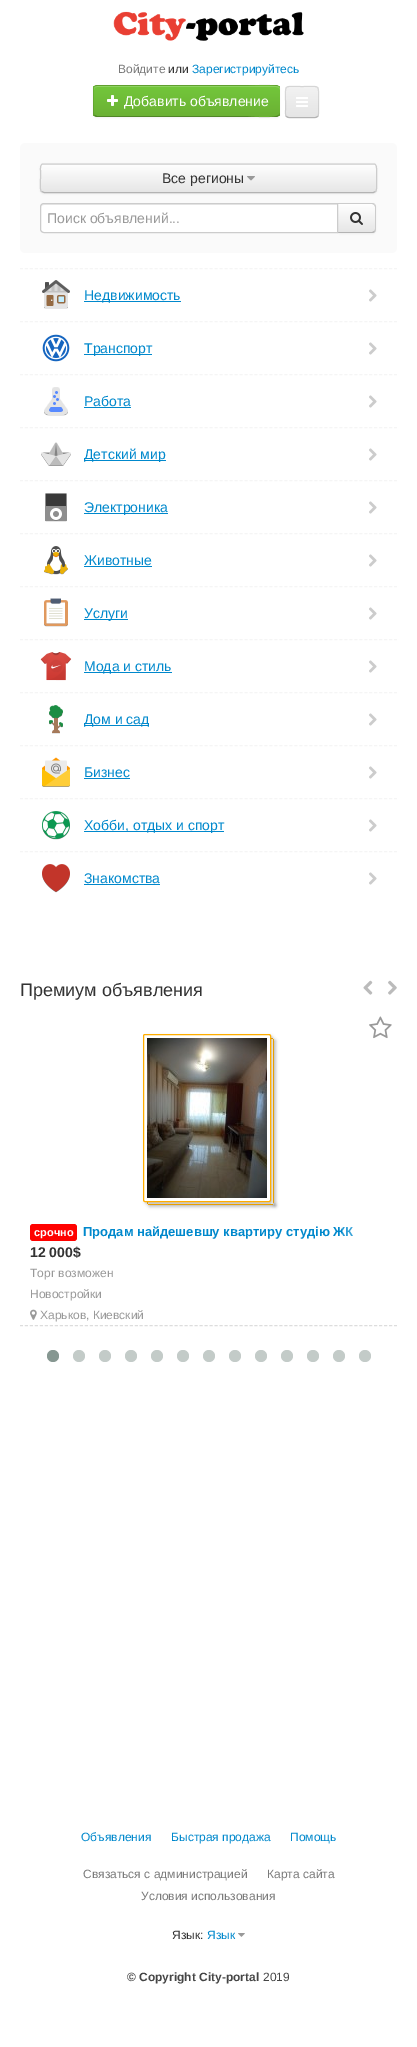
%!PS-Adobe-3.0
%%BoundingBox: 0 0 417 2047
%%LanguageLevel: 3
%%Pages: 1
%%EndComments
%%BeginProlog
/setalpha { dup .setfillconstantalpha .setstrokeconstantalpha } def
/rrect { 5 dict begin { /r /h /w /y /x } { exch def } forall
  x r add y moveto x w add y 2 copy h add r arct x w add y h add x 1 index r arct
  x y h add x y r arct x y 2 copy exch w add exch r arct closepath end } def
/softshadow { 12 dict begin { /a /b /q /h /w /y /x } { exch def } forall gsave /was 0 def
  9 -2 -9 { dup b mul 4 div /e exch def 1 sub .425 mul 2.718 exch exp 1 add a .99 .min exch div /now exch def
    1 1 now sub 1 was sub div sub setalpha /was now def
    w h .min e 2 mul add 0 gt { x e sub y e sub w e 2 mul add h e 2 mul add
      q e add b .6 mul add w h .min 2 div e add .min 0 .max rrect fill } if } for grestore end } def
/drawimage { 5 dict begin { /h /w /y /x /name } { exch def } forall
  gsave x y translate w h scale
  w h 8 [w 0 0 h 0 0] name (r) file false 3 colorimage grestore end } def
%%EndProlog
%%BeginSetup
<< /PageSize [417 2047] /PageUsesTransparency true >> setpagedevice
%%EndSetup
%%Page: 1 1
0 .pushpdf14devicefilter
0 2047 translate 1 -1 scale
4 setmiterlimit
1 setgray
0 0 417 2047 rectfill
(images/1.raw) 113 11 191 30 drawimage
0 setgray
93 86 187 32 4 1 0.05 softshadow
0.42 0.694 0.204 setrgbcolor
93 85 187 32 4 rrect fill
gsave
93 85 187 32 4 rrect clip newpath
gsave newpath 93 86 moveto 280 86 lineto 280 116 lineto 93 116 lineto closepath clip newpath
<< /ShadingType 2 /ColorSpace /DeviceRGB /Coords [187 86 187 116] /Extend [true true] /Function << /FunctionType 2 /Domain [0 1] /C0 [0.451 0.78 0.231] /C1 [0.42 0.694 0.204] /N 1 >> >> shfill grestore
grestore
0.561 0.824 0.384 setrgbcolor
newpath 97 87 moveto 276 87 lineto 278 87 280 88 280 90 curveto 280 89 lineto 280 87 278 86 276 86 curveto 97 86 lineto 95 86 94 87 94 89 curveto 94 90 lineto 94 88 95 87 97 87 curveto closepath fill
0.1 setalpha
0 setgray
newpath 97 85 moveto 94 86 lineto 95 87 lineto 97 86 lineto 246 86 lineto 247 86 280 82 280 89 curveto 280 87 278 85 276 85 curveto closepath fill
0.25 setalpha
newpath 97 117 moveto 276 117 lineto 278 117 280 115 280 113 curveto 280 120 246 116 246 116 curveto 97 116 lineto 95 115 lineto 94 116 lineto closepath fill
0.1 setalpha
newpath 93 89 moveto 93 113 lineto 93 114 93.5 115 94 116 curveto 95 115 lineto 94 115 94 114 94 113 curveto 94 89 lineto 94 88 94 87 95 87 curveto 94 86 lineto 93.5 87 93 88 93 89 curveto closepath fill
1 setalpha
(images/2.raw) 107 95 11 11 drawimage
0.929 setgray
285 86 34 32 4 rrect fill
gsave
285 86 34 32 4 rrect clip newpath
gsave newpath 285 87 moveto 319 87 lineto 319 117 lineto 285 117 lineto closepath clip newpath
<< /ShadingType 2 /ColorSpace /DeviceRGB /Coords [302 87 302 117] /Extend [true true] /Function << /FunctionType 2 /Domain [0 1] /C0 [0.949 0.949 0.949] /C1 [0.898 0.898 0.898] /N 1 >> >> shfill grestore
grestore
0.25 setalpha
0 setgray
newpath 317.5 116.5 moveto 317 117 316 117.5 315 117.5 curveto 289 117.5 lineto 288 117.5 287 117 286.5 116.5 curveto stroke
0.1 setalpha
newpath 286.5 116.5 moveto 285 115 285.5 112 285.5 110 curveto 285.5 102 lineto 285.5 83.5 283 86.5 302 86.5 curveto 321 86.5 318.5 83.5 318.5 102 curveto 318.5 110 lineto 318.5 112 319 115 317.5 116.5 curveto stroke
1 setalpha
(images/3.raw) 296 97 12 10 drawimage
0.98 setgray
20 143 377 110 5 rrect fill
0 setgray
40 164 337 30 4 1 0.05 softshadow
0.961 setgray
40 163 337 30 4 rrect fill
gsave
40 163 337 30 4 rrect clip newpath
gsave newpath 40 164 moveto 377 164 lineto 377 192 lineto 40 192 lineto closepath clip newpath
<< /ShadingType 2 /ColorSpace /DeviceRGB /Coords [209 164 209 192] /Extend [true true] /Function << /FunctionType 2 /Domain [0 1] /C0 [1 1 1] /C1 [0.902 0.902 0.902] /N 1 >> >> shfill grestore
grestore
0.702 setgray
newpath 375.5 191.5 moveto 373.5 192.5 lineto 263.5 192.5 lineto 44 192.5 lineto 41.5 191.5 lineto stroke
0.8 setgray
newpath 41.5 191.5 moveto 39.5 189.5 40.5 181 40.5 178 curveto 40.5 170.5 lineto 40.5 168.5 40 165 42.5 164 curveto 374.5 164 lineto 377 165 376.5 168.5 376.5 170.5 curveto 376.5 178 lineto 376.5 181 377.5 189.5 375.5 191.5 curveto stroke
(images/4.raw) 247 176 8 5 drawimage
0 setgray
337 204 39 30 4 1 0.05 softshadow
gsave
newpath 337 203 moveto 372 203 lineto 374 203 376 205 376 207 curveto 376 229 lineto 376 231 374 233 372 233 curveto 337 233 lineto closepath clip newpath
gsave newpath 338 204 moveto 376 204 lineto 376 232 lineto 338 232 lineto closepath clip newpath
<< /ShadingType 2 /ColorSpace /DeviceRGB /Coords [357 204 357 232] /Extend [true true] /Function << /FunctionType 2 /Domain [0 1] /C0 [1 1 1] /C1 [0.902 0.902 0.902] /N 1 >> >> shfill grestore
grestore
0.8 setgray
newpath 337 203 moveto 338 204 lineto 372 204 lineto 373 204 373.5 204.5 374 205 curveto 375 204 lineto 374 203.5 373 203 372 203 curveto closepath fill
newpath 376 229 moveto 376 207 lineto 376 206 375.5 205 375 204 curveto 374 205 lineto 374.5 205.5 375 206 375 207 curveto 375 229 lineto 375 230 374.5 230.5 374 231 curveto 375 232 lineto 375.5 231 376 230 376 229 curveto closepath fill
0.702 setgray
newpath 372 233 moveto 373 233 374 232.5 375 232 curveto 374 231 lineto 373.5 231.5 373 232 372 232 curveto 338 232 lineto 337 233 lineto closepath fill
1 setgray
newpath 44 203 moveto 338 203 lineto 338 233 lineto 44 233 lineto 42 233 40 231 40 229 curveto 40 207 lineto 40 205 42 203 44 203 curveto closepath fill
0.925 setgray
newpath 44 205 moveto 337 205 lineto 337 204 lineto 44 204 lineto 42 204 41 206 41 208 curveto 41 206 42 205 44 205 curveto closepath fill
0.8 setgray
newpath 44 203.5 moveto 337.5 203.5 lineto 337.5 232.5 lineto 44 232.5 lineto 42 232.5 40.5 231 40.5 229 curveto 40.5 207 lineto 40.5 205 42 203.5 44 203.5 curveto closepath stroke
(images/5.raw) 350 212 13 13 drawimage
0.961 setgray
[3 1.99] 0 setdash
newpath 20 268.5 moveto 397 268.5 lineto stroke
newpath 20 321.5 moveto 397 321.5 lineto stroke
(images/6.raw) 42 280 28 29 drawimage
0 0.533 0.8 setrgbcolor
84 301 97 1 rectfill
(images/7.raw) 369 289 8 13 drawimage
0.961 setgray
newpath 20 374.5 moveto 397 374.5 lineto stroke
(images/8.raw) 42 334 28 28 drawimage
0 0.533 0.8 setrgbcolor
84 354 68 1 rectfill
(images/7.raw) 369 342 8 13 drawimage
0.961 setgray
newpath 20 427.5 moveto 397 427.5 lineto stroke
(images/9.raw) 44 387 24 29 drawimage
0 0.533 0.8 setrgbcolor
84 407 47 1 rectfill
(images/7.raw) 369 395 8 13 drawimage
0.961 setgray
newpath 20 480.5 moveto 397 480.5 lineto stroke
(images/10.raw) 41 442 30 24 drawimage
0 0.533 0.8 setrgbcolor
84 460 82 1 rectfill
(images/7.raw) 369 448 8 13 drawimage
0.961 setgray
newpath 20 533.5 moveto 397 533.5 lineto stroke
(images/11.raw) 45 493 22 29 drawimage
0 0.533 0.8 setrgbcolor
84 513 84 1 rectfill
(images/7.raw) 369 501 8 13 drawimage
0.961 setgray
newpath 20 586.5 moveto 397 586.5 lineto stroke
(images/12.raw) 44 546 24 29 drawimage
0 0.533 0.8 setrgbcolor
84 566 68 1 rectfill
(images/7.raw) 369 554 8 13 drawimage
0.961 setgray
newpath 20 639.5 moveto 397 639.5 lineto stroke
(images/13.raw) 44 598 24 29 drawimage
0 0.533 0.8 setrgbcolor
84 619 44 1 rectfill
(images/7.raw) 369 607 8 13 drawimage
0.961 setgray
newpath 20 692.5 moveto 397 692.5 lineto stroke
(images/14.raw) 40 652 32 29 drawimage
0 0.533 0.8 setrgbcolor
84 672 88 1 rectfill
(images/7.raw) 369 660 8 13 drawimage
0.961 setgray
newpath 20 745.5 moveto 397 745.5 lineto stroke
(images/15.raw) 49 705 14 29 drawimage
0 0.533 0.8 setrgbcolor
84 725 65 1 rectfill
(images/7.raw) 369 713 8 13 drawimage
0.961 setgray
newpath 20 798.5 moveto 397 798.5 lineto stroke
(images/16.raw) 42 757 28 30 drawimage
0 0.533 0.8 setrgbcolor
84 778 46 1 rectfill
(images/7.raw) 369 766 8 13 drawimage
0.961 setgray
newpath 20 851.5 moveto 397 851.5 lineto stroke
(images/17.raw) 42 811 28 29 drawimage
0 0.533 0.8 setrgbcolor
84 831 140 1 rectfill
(images/7.raw) 369 819 8 13 drawimage
(images/18.raw) 42 864 28 29 drawimage
84 884 76 1 rectfill
(images/7.raw) 369 872 8 13 drawimage
(images/19.raw) 363 980 10 15 drawimage
(images/20.raw) 388 980 9 15 drawimage
0.867 setgray
newpath 20 1325.5 moveto 397 1325.5 lineto stroke
(images/21.raw) 369 1016 23 23 drawimage
0 setgray
149 1204 127 3 2 1.5 0.2 softshadow
1 0.682 0 setrgbcolor
148 1204 125 1 rectfill
0 setgray
273 1040 3 166 2 1.5 0.2 softshadow
1 setgray
newpath 271 1039 moveto 273 1039 lineto 273 1202 lineto 273 1204 272 1204 271 1204 curveto closepath fill
1 0.682 0 setrgbcolor
271 1038 2 1 rectfill
273 1039 1 164 rectfill
147 1202 1 2 rectfill
0 setgray
145 1036 128 168 2 1.5 0.2 softshadow
1 setgray
143.5 1034.5 127 167 1.5 rrect gsave fill grestore
1 0.682 0 setrgbcolor
[] 0 setdash
stroke
(images/22.raw) 147 1038 120 160 drawimage
1 0.008 0 setrgbcolor
30 1224 47 17 3 rrect fill
(images/24.raw) 30 1309 7 11 drawimage
0.525 0.592 0.569 setrgbcolor
newpath 53 1356 6 0 360 arc closepath fill
0.765 0.796 0.784 setrgbcolor
newpath 79 1356 6 0 360 arc closepath fill
newpath 105 1356 6 0 360 arc closepath fill
newpath 131 1356 6 0 360 arc closepath fill
newpath 157 1356 6 0 360 arc closepath fill
newpath 183 1356 6 0 360 arc closepath fill
newpath 209 1356 6 0 360 arc closepath fill
newpath 235 1356 6 0 360 arc closepath fill
newpath 261 1356 6 0 360 arc closepath fill
newpath 287 1356 6 0 360 arc closepath fill
newpath 313 1356 6 0 360 arc closepath fill
newpath 339 1356 6 0 360 arc closepath fill
newpath 365 1356 6 0 360 arc closepath fill
(images/25.raw) 238 1933 7 4 drawimage
/LiberationSans-Regular [12 0 0 -12 0 0] selectfont
0.478 setgray
118 73 moveto (Войдите) show
0.2 setgray
168 73 moveto (или) show
0 0.533 0.8 setrgbcolor
192 73 moveto (Зарегистрируйтесь) show
/LiberationSans-Regular [14 0 0 -14 0 0] selectfont
1 setgray
124 106 moveto (Добавить объявление) show
0.2 setgray
162 183 moveto (Все регионы) show
0.6 setgray
47 223 moveto (Поиск объявлений...) show
0 0.533 0.8 setrgbcolor
84 300 moveto (Недвижимость) show
84 353 moveto (Транспорт) show
84 406 moveto (Работа) show
84 459 moveto (Детский мир) show
84 512 moveto (Электроника) show
84 565 moveto (Животные) show
84 618 moveto (Услуги) show
84 671 moveto (Мода и стиль) show
84 724 moveto (Дом и сад) show
84 777 moveto (Бизнес) show
84 830 moveto (Хобби, отдых и спорт) show
84 883 moveto (Знакомства) show
/LiberationSans-Regular [18 0 0 -18 0 0] selectfont
0.2 setgray
20 996 moveto (Премиум объявления) show
/LiberationSans-Bold [13 0 0 -13 0 0] selectfont
0 0.533 0.8 setrgbcolor
83 1236 moveto (Продам найдешевшу квартиру студію ЖК) show
/LiberationSans-Bold [11 0 0 -11 0 0] selectfont
1 setgray
34 1236 moveto (срочно) show
(images/23.raw) 342 1227 11 9 drawimage
/LiberationSans-Bold [14 0 0 -14 0 0] selectfont
0.2 setgray
30 1257 moveto (12 000$) show
/LiberationSans-Regular [12 0 0 -12 0 0] selectfont
0.6 setgray
30 1277 moveto (Торг возможен) show
30 1298 moveto (Новостройки) show
40 1319 moveto (Харьков, Киевский) show
0 0.533 0.8 setrgbcolor
81 1841 moveto (Объявления) show
171 1841 moveto (Быстрая продажа) show
290 1841 moveto (Помощь) show
0.478 setgray
83 1878 moveto (Связаться с администрацией) show
267 1878 moveto (Карта сайта) show
141 1900 moveto (Условия использования) show
0.2 setgray
172 1939 moveto (Язык:) show
0 0.533 0.8 setrgbcolor
207 1939 moveto (Язык) show
/LiberationSans-Bold [12 0 0 -12 0 0] selectfont
0.271 setgray
127 1981 moveto (© Copyright City-portal) show
/LiberationSans-Regular [12 0 0 -12 0 0] selectfont
263 1981 moveto (2019) show
.poppdf14devicefilter showpage
%%EOF
